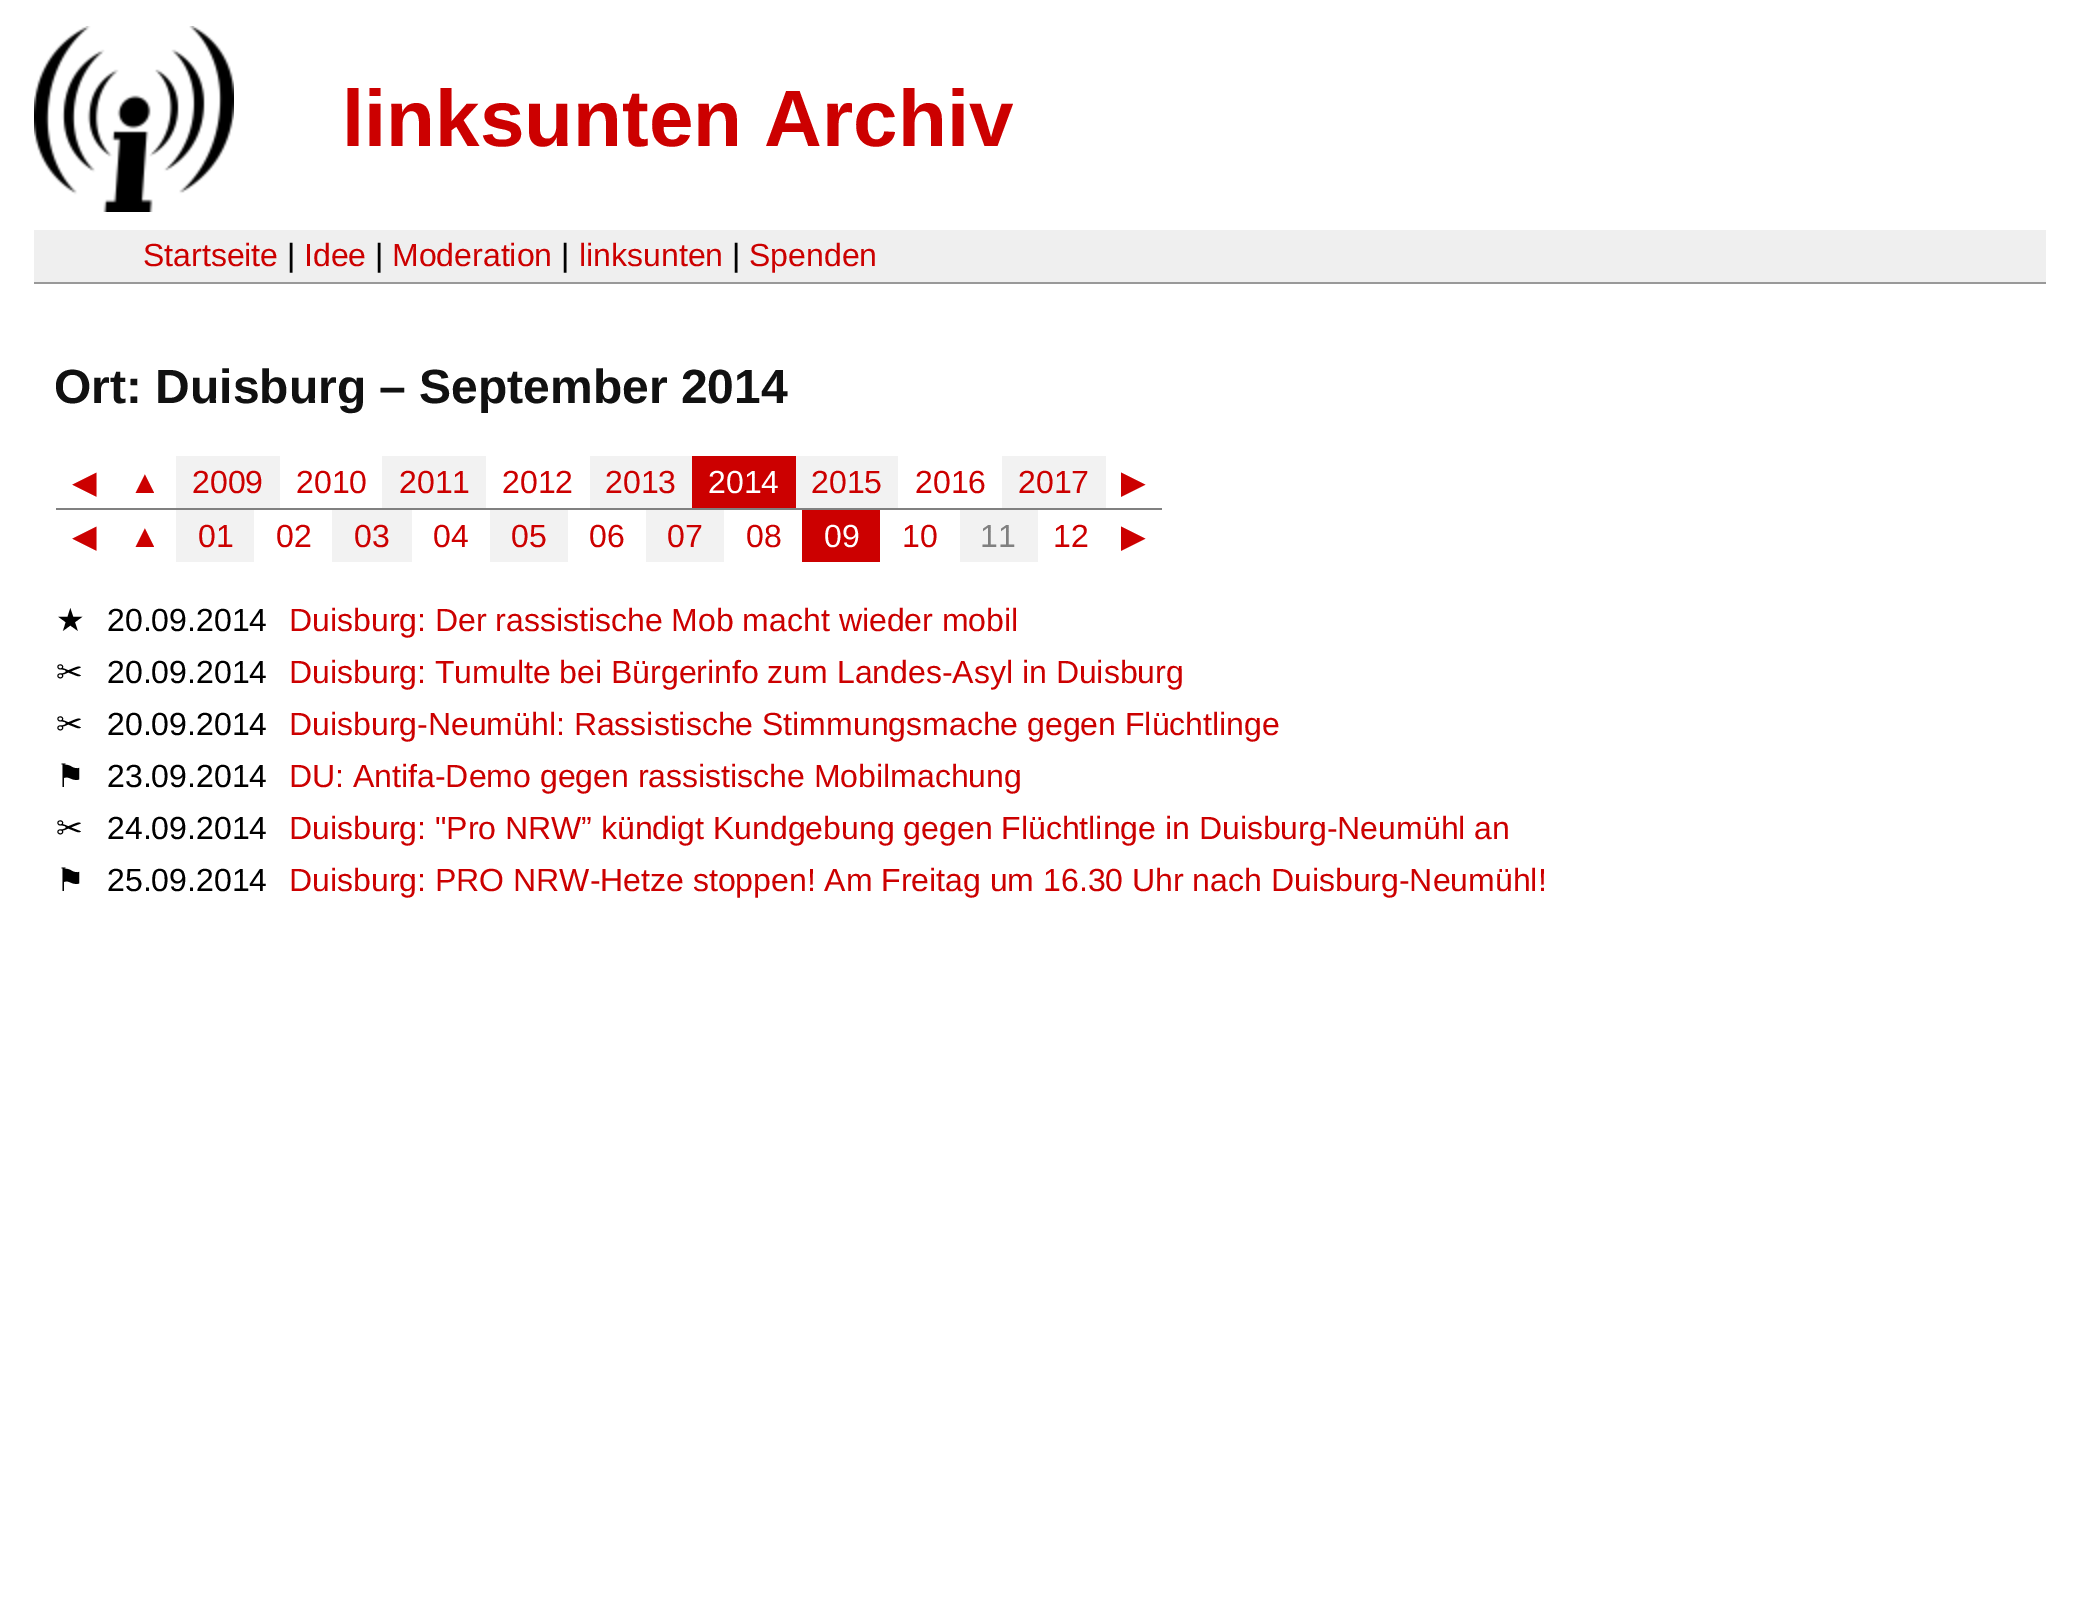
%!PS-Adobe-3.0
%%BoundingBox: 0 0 2079 1607
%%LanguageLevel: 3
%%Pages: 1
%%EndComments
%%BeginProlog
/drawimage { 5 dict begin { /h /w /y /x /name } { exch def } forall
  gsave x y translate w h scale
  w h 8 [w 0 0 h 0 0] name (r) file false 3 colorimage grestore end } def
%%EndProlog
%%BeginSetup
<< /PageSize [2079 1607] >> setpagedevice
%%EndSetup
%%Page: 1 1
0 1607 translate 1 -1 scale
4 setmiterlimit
1 setgray
0 0 2079 1607 rectfill
(images/1.raw) 34 26 200 186 drawimage
0.937 setgray
34 230 2012 52 rectfill
0.6 setgray
34 282 2012 2 rectfill
0.502 setgray
56 508 1106 2 rectfill
0.949 setgray
176 456 104 52 rectfill
382 456 104 52 rectfill
590 456 102 52 rectfill
0.8 0 0 setrgbcolor
692 456 104 52 rectfill
0.949 setgray
796 456 102 52 rectfill
1002 456 104 52 rectfill
176 510 78 52 rectfill
332 510 80 52 rectfill
490 510 78 52 rectfill
646 510 78 52 rectfill
0.8 0 0 setrgbcolor
802 510 78 52 rectfill
0.949 setgray
960 510 78 52 rectfill
/LiberationSans-Bold [80 0 0 -80 0 0] selectfont
0.8 0 0 setrgbcolor
342 146 moveto (linksunten Archiv) show
/LiberationSans-Regular [32 0 0 -32 0 0] selectfont
143 266 moveto (Startseite) show
0 setgray
287 266 moveto (|) show
0.8 0 0 setrgbcolor
304 266 moveto (Idee) show
0 setgray
375 266 moveto (|) show
0.8 0 0 setrgbcolor
392 266 moveto (Moderation) show
0 setgray
561 266 moveto (|) show
0.8 0 0 setrgbcolor
579 266 moveto (linksunten) show
0 setgray
732 266 moveto (|) show
0.8 0 0 setrgbcolor
749 266 moveto (Spenden) show
/LiberationSans-Bold [48 0 0 -48 0 0] selectfont
0.067 setgray
54 403 moveto (Ort: Duisburg – September 2014) show
/DejaVuSans-Regular [32 0 0 -32 0 0] selectfont
0.8 0 0 setrgbcolor
72 493 moveto (◀) show
/LiberationSans-Regular [32 0 0 -32 0 0] selectfont
129 493 moveto (▲) show
192 493 moveto (2009) show
296 493 moveto (2010) show
399 493 moveto (2011) show
502 493 moveto (2012) show
605 493 moveto (2013) show
1 setgray
708 493 moveto (2014) show
0.8 0 0 setrgbcolor
811 493 moveto (2015) show
915 493 moveto (2016) show
1018 493 moveto (2017) show
/DejaVuSans-Regular [32 0 0 -32 0 0] selectfont
1121 493 moveto (▶) show
72 547 moveto (◀) show
/LiberationSans-Regular [32 0 0 -32 0 0] selectfont
129 547 moveto (▲) show
198 547 moveto (01) show
276 547 moveto (02) show
354 547 moveto (03) show
433 547 moveto (04) show
511 547 moveto (05) show
589 547 moveto (06) show
667 547 moveto (07) show
746 547 moveto (08) show
1 setgray
824 547 moveto (09) show
0.8 0 0 setrgbcolor
902 547 moveto (10) show
0.502 setgray
980 547 moveto (11) show
0.8 0 0 setrgbcolor
1053 547 moveto (12) show
/DejaVuSans-Regular [32 0 0 -32 0 0] selectfont
1121 547 moveto (▶) show
0 setgray
56 631 moveto (★) show
/LiberationSans-Regular [32 0 0 -32 0 0] selectfont
107 631 moveto (20.09.2014) show
0.8 0 0 setrgbcolor
289 631 moveto (Duisburg: Der rassistische Mob macht wieder mobil) show
/DejaVuSans-Regular [32 0 0 -32 0 0] selectfont
0 setgray
56 683 moveto (✂) show
/LiberationSans-Regular [32 0 0 -32 0 0] selectfont
107 683 moveto (20.09.2014) show
0.8 0 0 setrgbcolor
289 683 moveto (Duisburg: Tumulte bei Bürgerinfo zum Landes-Asyl in Duisburg) show
/DejaVuSans-Regular [32 0 0 -32 0 0] selectfont
0 setgray
56 735 moveto (✂) show
/LiberationSans-Regular [32 0 0 -32 0 0] selectfont
107 735 moveto (20.09.2014) show
0.8 0 0 setrgbcolor
289 735 moveto (Duisburg-Neumühl: Rassistische Stimmungsmache gegen Flüchtlinge) show
/DejaVuSans-Regular [32 0 0 -32 0 0] selectfont
0 setgray
56 787 moveto (⚑) show
/LiberationSans-Regular [32 0 0 -32 0 0] selectfont
107 787 moveto (23.09.2014) show
0.8 0 0 setrgbcolor
289 787 moveto (DU: Antifa-Demo gegen rassistische Mobilmachung) show
/DejaVuSans-Regular [32 0 0 -32 0 0] selectfont
0 setgray
56 839 moveto (✂) show
/LiberationSans-Regular [32 0 0 -32 0 0] selectfont
107 839 moveto (24.09.2014) show
0.8 0 0 setrgbcolor
289 839 moveto (Duisburg: "Pro NRW” kündigt Kundgebung gegen Flüchtlinge in Duisburg-Neumühl an) show
/DejaVuSans-Regular [32 0 0 -32 0 0] selectfont
0 setgray
56 891 moveto (⚑) show
/LiberationSans-Regular [32 0 0 -32 0 0] selectfont
107 891 moveto (25.09.2014) show
0.8 0 0 setrgbcolor
289 891 moveto (Duisburg: PRO NRW-Hetze stoppen! Am Freitag um 16.30 Uhr nach Duisburg-Neumühl!) show
showpage
%%EOF
